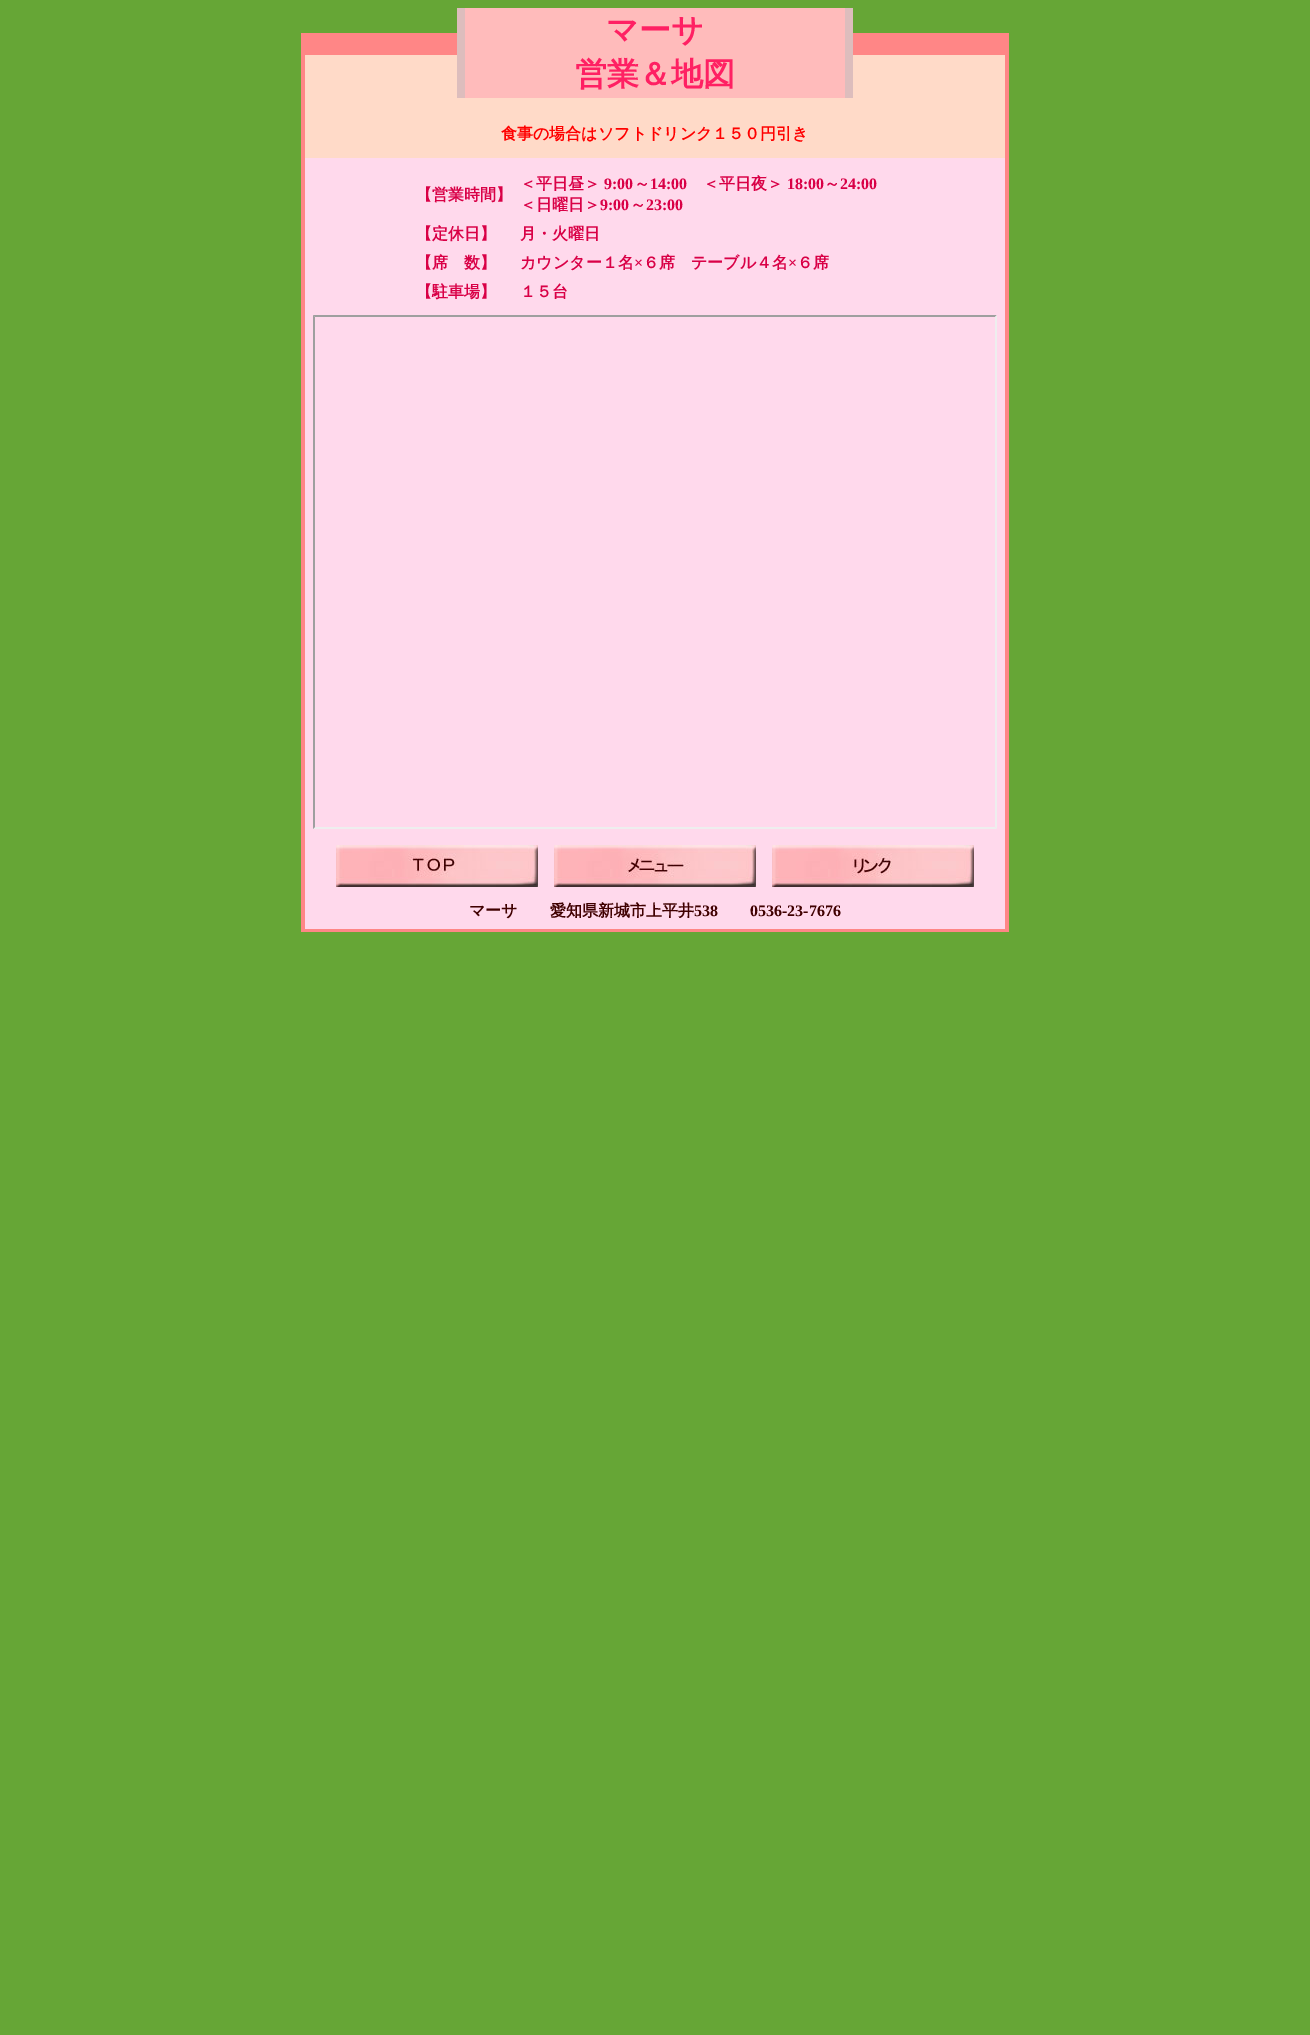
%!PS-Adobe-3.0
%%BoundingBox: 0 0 1310 2035
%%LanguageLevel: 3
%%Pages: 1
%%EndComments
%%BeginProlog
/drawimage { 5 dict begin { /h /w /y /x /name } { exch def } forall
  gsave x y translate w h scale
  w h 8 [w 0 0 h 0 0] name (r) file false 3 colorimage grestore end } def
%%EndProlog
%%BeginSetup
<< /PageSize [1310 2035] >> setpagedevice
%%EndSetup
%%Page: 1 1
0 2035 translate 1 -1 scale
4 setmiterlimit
0.4 0.651 0.212 setrgbcolor
0 0 1310 2035 rectfill
1 0.851 0.925 setrgbcolor
305 158 700 771 rectfill
0.867 0.741 0.741 setrgbcolor
457 8 8 90 rectfill
1 0.733 0.733 setrgbcolor
465 8 380 90 rectfill
0.867 0.741 0.741 setrgbcolor
845 8 8 90 rectfill
1 0.525 0.525 setrgbcolor
301 33 156 22 rectfill
853 33 152 22 rectfill
1005 33 4 899 rectfill
301 55 4 874 rectfill
1 0.855 0.784 setrgbcolor
305 55 152 43 rectfill
853 55 152 43 rectfill
305 98 700 60 rectfill
0.624 setgray
newpath 313 315 moveto 997 315 lineto 995 317 lineto 315 317 lineto closepath fill
0.933 setgray
newpath 997 315 moveto 997 829 lineto 995 827 lineto 995 317 lineto closepath fill
newpath 997 829 moveto 313 829 lineto 315 827 lineto 995 827 lineto closepath fill
0.624 setgray
newpath 313 829 moveto 313 315 lineto 315 317 lineto 315 827 lineto closepath fill
(images/1.raw) 336 845 202 42 drawimage
(images/2.raw) 554 845 202 42 drawimage
(images/3.raw) 772 845 202 42 drawimage
1 0.525 0.525 setrgbcolor
301 929 704 3 rectfill
/WenQuanYiZenHei-Bold [32 0 0 -32 0 0] selectfont
1 0.125 0.388 setrgbcolor
606 41 moveto (マーサ) show
575 85 moveto (営業＆地図) show
/WenQuanYiZenHei-Bold [16 0 0 -16 0 0] selectfont
1 0 0 setrgbcolor
501 139 moveto (食事の場合はソフトドリンク１５０円引き) show
0.851 0 0.275 setrgbcolor
416 200 moveto (【営業時間】) show
520 189 moveto (＜平日昼＞) show
/LiberationSerif-Bold [16 0 0 -16 0 0] selectfont
604 189 moveto (9:00) show
/WenQuanYiZenHei-Bold [16 0 0 -16 0 0] selectfont
634 189 moveto (～) show
/LiberationSerif-Bold [16 0 0 -16 0 0] selectfont
650 189 moveto (14:00) show
/WenQuanYiZenHei-Bold [16 0 0 -16 0 0] selectfont
703 189 moveto (＜平日夜＞) show
/LiberationSerif-Bold [16 0 0 -16 0 0] selectfont
787 189 moveto (18:00) show
/WenQuanYiZenHei-Bold [16 0 0 -16 0 0] selectfont
824 189 moveto (～) show
/LiberationSerif-Bold [16 0 0 -16 0 0] selectfont
840 189 moveto (24:00) show
/WenQuanYiZenHei-Bold [16 0 0 -16 0 0] selectfont
520 210 moveto (＜日曜日＞) show
/LiberationSerif-Bold [16 0 0 -16 0 0] selectfont
600 210 moveto (9:00) show
/WenQuanYiZenHei-Bold [16 0 0 -16 0 0] selectfont
630 210 moveto (～) show
/LiberationSerif-Bold [16 0 0 -16 0 0] selectfont
646 210 moveto (23:00) show
/WenQuanYiZenHei-Bold [16 0 0 -16 0 0] selectfont
416 239 moveto (【定休日】) show
520 239 moveto (月・火曜日) show
416 268 moveto (【席　数】) show
520 268 moveto (カウンター１名) show
/LiberationSerif-Bold [16 0 0 -16 0 0] selectfont
634 268 moveto (×) show
/WenQuanYiZenHei-Bold [16 0 0 -16 0 0] selectfont
643 268 moveto (６席　テーブル４名) show
/LiberationSerif-Bold [16 0 0 -16 0 0] selectfont
788 268 moveto (×) show
/WenQuanYiZenHei-Bold [16 0 0 -16 0 0] selectfont
797 268 moveto (６席) show
416 297 moveto (【駐車場】) show
520 297 moveto (１５台) show
0.251 0 0 setrgbcolor
469 916 moveto (マーサ　　愛知県新城市上平井) show
/LiberationSerif-Bold [16 0 0 -16 0 0] selectfont
694 916 moveto (538) show
750 916 moveto (0536-23-7676) show
showpage
%%EOF
